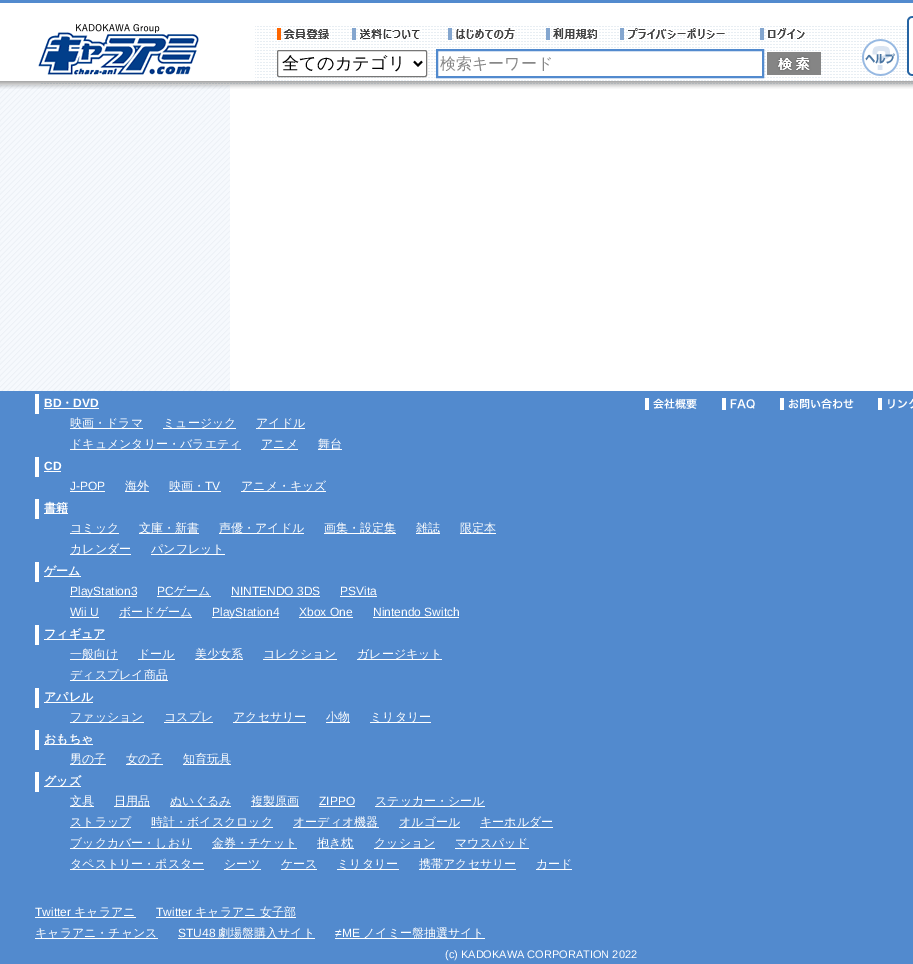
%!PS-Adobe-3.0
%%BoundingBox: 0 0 913 964
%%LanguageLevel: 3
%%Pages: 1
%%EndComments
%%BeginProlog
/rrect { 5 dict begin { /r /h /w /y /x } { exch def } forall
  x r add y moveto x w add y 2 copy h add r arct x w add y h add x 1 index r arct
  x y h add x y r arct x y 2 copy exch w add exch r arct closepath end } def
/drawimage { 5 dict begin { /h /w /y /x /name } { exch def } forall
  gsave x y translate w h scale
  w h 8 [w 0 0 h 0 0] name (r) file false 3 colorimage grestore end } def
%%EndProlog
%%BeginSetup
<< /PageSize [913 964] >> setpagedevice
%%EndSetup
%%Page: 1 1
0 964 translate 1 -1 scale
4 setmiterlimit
1 setgray
0 0 913 964 rectfill
(images/1.raw) 0 85 230 306 drawimage
(images/2.raw) 41 26 872 58 drawimage
0.322 0.541 0.808 setrgbcolor
0 0 913 3 rectfill
1 setgray
41 26 214 55 rectfill
(images/3.raw) 38 24 161 51 drawimage
(images/4.raw) 277 28 53 12 drawimage
(images/5.raw) 352 28 69 12 drawimage
(images/6.raw) 448 28 68 12 drawimage
(images/7.raw) 546 28 52 12 drawimage
(images/8.raw) 620 28 106 12 drawimage
(images/9.raw) 760 28 45 12 drawimage
277.5 50.5 149 26 1.5 rrect gsave fill grestore
0.463 setgray
stroke
0 setgray
2 setlinewidth
newpath 414 61.5 moveto 418 65.5 lineto 422 61.5 lineto stroke
1 setgray
438 53 324 22 rectfill
0.322 0.541 0.808 setrgbcolor
437 50 326 27 rectstroke
(images/10.raw) 767 52 54 23 drawimage
(images/11.raw) 862 39 37 37 drawimage
(images/12.raw) 907 16 6 60 drawimage
(images/13.raw) 0 81 913 8 drawimage
0 391 913 573 rectfill
1 setgray
35 394 4 20 rectfill
44 408 55 1 rectfill
70 428 73 1 rectfill
163 428 73 1 rectfill
256 428 49 1 rectfill
70 449 171 1 rectfill
261 449 37 1 rectfill
318 449 24 1 rectfill
35 457 4 20 rectfill
44 471 17 1 rectfill
70 491 35 1 rectfill
125 491 24 1 rectfill
169 491 52 1 rectfill
241 491 85 1 rectfill
35 499 4 20 rectfill
44 513 24 1 rectfill
70 533 49 1 rectfill
139 533 60 1 rectfill
219 533 85 1 rectfill
324 533 72 1 rectfill
416 533 24 1 rectfill
460 533 36 1 rectfill
70 554 61 1 rectfill
151 554 74 1 rectfill
35 562 4 20 rectfill
44 576 37 1 rectfill
70 596 67 1 rectfill
157 596 54 1 rectfill
231 596 89 1 rectfill
340 596 37 1 rectfill
70 617 29 1 rectfill
119 617 73 1 rectfill
212 617 67 1 rectfill
299 617 54 1 rectfill
373 617 86 1 rectfill
35 625 4 20 rectfill
44 639 61 1 rectfill
70 659 48 1 rectfill
138 659 37 1 rectfill
195 659 48 1 rectfill
263 659 74 1 rectfill
357 659 85 1 rectfill
70 680 98 1 rectfill
35 688 4 20 rectfill
44 702 49 1 rectfill
70 722 74 1 rectfill
164 722 49 1 rectfill
233 722 73 1 rectfill
326 722 24 1 rectfill
370 722 61 1 rectfill
35 730 4 20 rectfill
44 744 49 1 rectfill
70 764 36 1 rectfill
126 764 37 1 rectfill
183 764 48 1 rectfill
35 772 4 20 rectfill
44 786 37 1 rectfill
70 806 24 1 rectfill
114 806 36 1 rectfill
170 806 61 1 rectfill
251 806 48 1 rectfill
319 806 36 1 rectfill
375 806 110 1 rectfill
70 827 61 1 rectfill
151 827 122 1 rectfill
293 827 86 1 rectfill
399 827 61 1 rectfill
480 827 73 1 rectfill
70 848 122 1 rectfill
212 848 85 1 rectfill
317 848 37 1 rectfill
374 848 61 1 rectfill
455 848 74 1 rectfill
70 869 134 1 rectfill
224 869 37 1 rectfill
281 869 36 1 rectfill
337 869 62 1 rectfill
419 869 97 1 rectfill
536 869 36 1 rectfill
35 917 101 1 rectfill
156 917 140 1 rectfill
35 938 123 1 rectfill
178 938 137 1 rectfill
335 938 150 1 rectfill
(images/14.raw) 645 398 52 12 drawimage
(images/15.raw) 722 398 33 12 drawimage
(images/16.raw) 780 398 74 12 drawimage
(images/17.raw) 878 398 35 12 drawimage
/WenQuanYiZenHei-Medium [17.25 0 0 -17.25 0 0] selectfont
0 setgray
282 69 moveto (全てのカテゴリ) show
/WenQuanYiZenHei-Medium [16 0 0 -16 0 0] selectfont
0.529 setgray
440 69 moveto (検索キーワード) show
/LiberationSans-Bold [12 0 0 -12 0 0] selectfont
1 setgray
44 407 moveto (BD) show
/WenQuanYiZenHei-Bold [12 0 0 -12 0 0] selectfont
61 407 moveto (・) show
/LiberationSans-Bold [12 0 0 -12 0 0] selectfont
73 407 moveto (DVD) show
/WenQuanYiZenHei-Medium [12 0 0 -12 0 0] selectfont
70 427 moveto (映画・ドラマ) show
163 427 moveto (ミュージック) show
256 427 moveto (アイドル) show
70 448 moveto (ドキュメンタリー・バラエティ) show
261 448 moveto (アニメ) show
318 448 moveto (舞台) show
/LiberationSans-Bold [12 0 0 -12 0 0] selectfont
44 470 moveto (CD) show
/LiberationSans-Regular [12 0 0 -12 0 0] selectfont
70 490 moveto (J-POP) show
/WenQuanYiZenHei-Medium [12 0 0 -12 0 0] selectfont
125 490 moveto (海外) show
169 490 moveto (映画・) show
/LiberationSans-Regular [12 0 0 -12 0 0] selectfont
205 490 moveto (TV) show
/WenQuanYiZenHei-Medium [12 0 0 -12 0 0] selectfont
241 490 moveto (アニメ・キッズ) show
/WenQuanYiZenHei-Bold [12 0 0 -12 0 0] selectfont
44 512 moveto (書籍) show
/WenQuanYiZenHei-Medium [12 0 0 -12 0 0] selectfont
70 532 moveto (コミック) show
139 532 moveto (文庫・新書) show
219 532 moveto (声優・アイドル) show
324 532 moveto (画集・設定集) show
416 532 moveto (雑誌) show
460 532 moveto (限定本) show
70 553 moveto (カレンダー) show
151 553 moveto (パンフレット) show
/WenQuanYiZenHei-Bold [12 0 0 -12 0 0] selectfont
44 575 moveto (ゲーム) show
/LiberationSans-Regular [12 0 0 -12 0 0] selectfont
70 595 moveto (PlayStation3) show
157 595 moveto (PC) show
/WenQuanYiZenHei-Medium [12 0 0 -12 0 0] selectfont
174 595 moveto (ゲーム) show
/LiberationSans-Regular [12 0 0 -12 0 0] selectfont
231 595 moveto (NINTENDO 3DS) show
340 595 moveto (PSVita) show
70 616 moveto (Wii U) show
/WenQuanYiZenHei-Medium [12 0 0 -12 0 0] selectfont
119 616 moveto (ボードゲーム) show
/LiberationSans-Regular [12 0 0 -12 0 0] selectfont
212 616 moveto (PlayStation4) show
299 616 moveto (Xbox One) show
373 616 moveto (Nintendo Switch) show
/WenQuanYiZenHei-Bold [12 0 0 -12 0 0] selectfont
44 638 moveto (フィギュア) show
/WenQuanYiZenHei-Medium [12 0 0 -12 0 0] selectfont
70 658 moveto (一般向け) show
138 658 moveto (ドール) show
195 658 moveto (美少女系) show
263 658 moveto (コレクション) show
357 658 moveto (ガレージキット) show
70 679 moveto (ディスプレイ商品) show
/WenQuanYiZenHei-Bold [12 0 0 -12 0 0] selectfont
44 701 moveto (アパレル) show
/WenQuanYiZenHei-Medium [12 0 0 -12 0 0] selectfont
70 721 moveto (ファッション) show
164 721 moveto (コスプレ) show
233 721 moveto (アクセサリー) show
326 721 moveto (小物) show
370 721 moveto (ミリタリー) show
/WenQuanYiZenHei-Bold [12 0 0 -12 0 0] selectfont
44 743 moveto (おもちゃ) show
/WenQuanYiZenHei-Medium [12 0 0 -12 0 0] selectfont
70 763 moveto (男の子) show
126 763 moveto (女の子) show
183 763 moveto (知育玩具) show
/WenQuanYiZenHei-Bold [12 0 0 -12 0 0] selectfont
44 785 moveto (グッズ) show
/WenQuanYiZenHei-Medium [12 0 0 -12 0 0] selectfont
70 805 moveto (文具) show
114 805 moveto (日用品) show
170 805 moveto (ぬいぐるみ) show
251 805 moveto (複製原画) show
/LiberationSans-Regular [12 0 0 -12 0 0] selectfont
319 805 moveto (ZIPPO) show
/WenQuanYiZenHei-Medium [12 0 0 -12 0 0] selectfont
375 805 moveto (ステッカー・シール) show
70 826 moveto (ストラップ) show
151 826 moveto (時計・ボイスクロック) show
293 826 moveto (オーディオ機器) show
399 826 moveto (オルゴール) show
480 826 moveto (キーホルダー) show
70 847 moveto (ブックカバー・しおり) show
212 847 moveto (金券・チケット) show
317 847 moveto (抱き枕) show
374 847 moveto (クッション) show
455 847 moveto (マウスパッド) show
70 868 moveto (タペストリー・ポスター) show
224 868 moveto (シーツ) show
281 868 moveto (ケース) show
337 868 moveto (ミリタリー) show
419 868 moveto (携帯アクセサリー) show
536 868 moveto (カード) show
/LiberationSans-Regular [12 0 0 -12 0 0] selectfont
35 916 moveto (Twitter) show
/WenQuanYiZenHei-Medium [12 0 0 -12 0 0] selectfont
74 916 moveto (キャラアニ) show
/LiberationSans-Regular [12 0 0 -12 0 0] selectfont
156 916 moveto (Twitter) show
/WenQuanYiZenHei-Medium [12 0 0 -12 0 0] selectfont
195 916 moveto (キャラアニ 女子部) show
35 937 moveto (キャラアニ・チャンス) show
/LiberationSans-Regular [12 0 0 -12 0 0] selectfont
178 937 moveto (STU48) show
/WenQuanYiZenHei-Medium [12 0 0 -12 0 0] selectfont
218 937 moveto (劇場盤購入サイト) show
/LiberationSans-Regular [12 0 0 -12 0 0] selectfont
335 937 moveto (≠ME) show
/WenQuanYiZenHei-Medium [12 0 0 -12 0 0] selectfont
363 937 moveto (ノイミー盤抽選サイト) show
/LiberationSans-Regular [11 0 0 -11 0 0] selectfont
445 958 moveto (\(c\) KADOKAWA CORPORATION 2022) show
showpage
%%EOF
